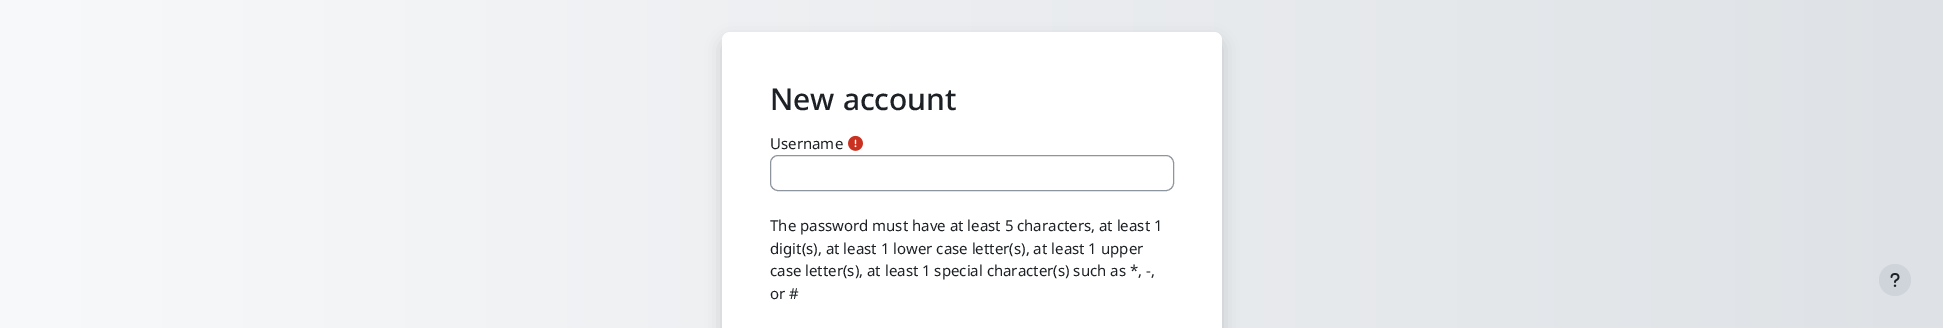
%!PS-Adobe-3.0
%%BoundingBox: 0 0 1943 328
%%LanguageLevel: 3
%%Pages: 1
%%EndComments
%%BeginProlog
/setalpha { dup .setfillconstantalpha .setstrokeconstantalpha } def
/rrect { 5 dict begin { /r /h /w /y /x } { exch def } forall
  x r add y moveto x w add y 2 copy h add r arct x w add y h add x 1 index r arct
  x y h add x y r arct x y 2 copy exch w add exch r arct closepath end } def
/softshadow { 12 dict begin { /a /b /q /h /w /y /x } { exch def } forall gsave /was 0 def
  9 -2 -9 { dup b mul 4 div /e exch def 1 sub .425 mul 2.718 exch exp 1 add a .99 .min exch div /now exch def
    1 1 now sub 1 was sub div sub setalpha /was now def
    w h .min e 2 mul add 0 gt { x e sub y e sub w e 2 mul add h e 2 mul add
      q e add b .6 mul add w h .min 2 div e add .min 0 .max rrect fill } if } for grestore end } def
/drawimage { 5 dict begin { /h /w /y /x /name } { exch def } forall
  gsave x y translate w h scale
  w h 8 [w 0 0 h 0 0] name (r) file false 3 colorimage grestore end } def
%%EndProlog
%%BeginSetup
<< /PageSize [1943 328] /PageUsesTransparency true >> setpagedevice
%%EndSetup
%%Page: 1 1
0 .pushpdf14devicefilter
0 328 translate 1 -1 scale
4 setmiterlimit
1 setgray
0 0 1943 328 rectfill
gsave newpath 0 0 moveto 1943 0 lineto 1943 328 lineto 0 328 lineto closepath clip newpath
<< /ShadingType 2 /ColorSpace /DeviceRGB /Coords [0 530 1943 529] /Extend [true true] /Function << /FunctionType 2 /Domain [0 1] /C0 [0.973 0.976 0.98] /C1 [0.871 0.886 0.902] /N 1 >> >> shfill grestore
0 setgray
722 40 500 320 8 8 0.15 softshadow
1 setgray
722 32 500 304 8 rrect fill
(images/1.raw) 848 135 15 16 drawimage
0.561 0.584 0.62 setrgbcolor
770.5 155.5 403 35 7.5 rrect stroke
0.808 0.831 0.855 setrgbcolor
newpath 1895 280 16 0 360 arc closepath fill
(images/2.raw) 1890 273 10 14 drawimage
/NotoSans-Medium [30 0 0 -30 0 0] selectfont
0.114 0.129 0.145 setrgbcolor
770 110 moveto (New account) show
/NotoSans-Regular [15 0 0 -15 0 0] selectfont
770 149 moveto (Username) show
770 231 moveto (The password must have at least 5 characters, at least 1) show
770 254 moveto (digit\(s\), at least 1 lower case letter\(s\), at least 1 upper) show
770 276 moveto (case letter\(s\), at least 1 special character\(s\) such as *, -,) show
770 299 moveto (or #) show
.poppdf14devicefilter showpage
%%EOF
